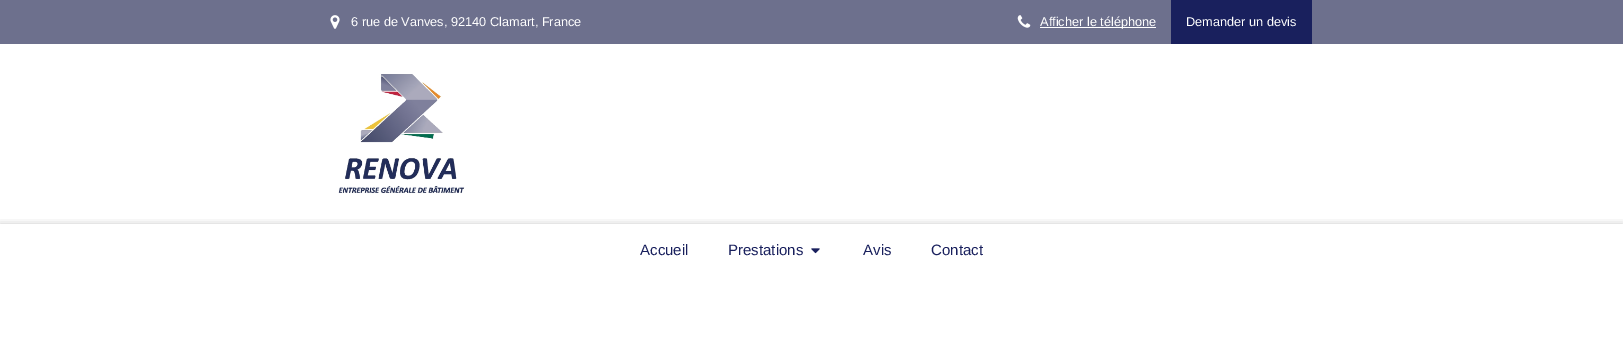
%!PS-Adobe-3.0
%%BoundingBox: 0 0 1623 357
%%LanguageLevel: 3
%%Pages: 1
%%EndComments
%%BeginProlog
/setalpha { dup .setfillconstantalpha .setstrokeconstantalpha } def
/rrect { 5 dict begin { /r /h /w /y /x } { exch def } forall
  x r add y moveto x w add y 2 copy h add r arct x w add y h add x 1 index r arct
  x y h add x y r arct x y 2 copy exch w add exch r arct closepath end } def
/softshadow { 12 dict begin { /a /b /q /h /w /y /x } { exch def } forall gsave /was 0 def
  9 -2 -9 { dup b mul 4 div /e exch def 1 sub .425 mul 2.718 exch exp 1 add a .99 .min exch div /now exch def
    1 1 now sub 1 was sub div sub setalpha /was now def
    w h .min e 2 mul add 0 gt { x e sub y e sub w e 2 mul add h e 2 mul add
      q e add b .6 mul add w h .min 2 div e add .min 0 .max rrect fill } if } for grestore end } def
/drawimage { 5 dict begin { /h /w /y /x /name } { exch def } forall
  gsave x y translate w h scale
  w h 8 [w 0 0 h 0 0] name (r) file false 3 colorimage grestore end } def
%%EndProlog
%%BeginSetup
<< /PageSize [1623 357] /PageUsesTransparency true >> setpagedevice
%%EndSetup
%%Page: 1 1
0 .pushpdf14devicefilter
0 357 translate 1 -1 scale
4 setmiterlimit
1 setgray
0 0 1623 357 rectfill
0.427 0.439 0.553 setrgbcolor
0 0 1623 44 rectfill
(images/1.raw) 330 15 10 14 drawimage
(images/2.raw) 1017 15 14 13 drawimage
1 setgray
1040 27 116 1 rectfill
0.098 0.125 0.365 setrgbcolor
1171 0 141 44 rectfill
(images/3.raw) 338 74 127 120 drawimage
gsave
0 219 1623 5 rectclip
0 setgray
0 224 1623 51 0 4 0.2 softshadow
grestore
(images/4.raw) 811 248 9 6 drawimage
1 setgray
0 275 1623 7 rectfill
/LiberationSans-Regular [12.75 0 0 -12.75 0 0] selectfont
351 26 moveto (6 rue de Vanves, 92140 Clamart, France) show
1040 26 moveto (Afficher le téléphone) show
1186 26 moveto (Demander un devis) show
/LiberationSans-Regular [15 0 0 -15 0 0] selectfont
0.098 0.125 0.365 setrgbcolor
640 255 moveto (Accueil) show
728 255 moveto (Prestations) show
863 255 moveto (Avis) show
931 255 moveto (Contact) show
.poppdf14devicefilter showpage
%%EOF
